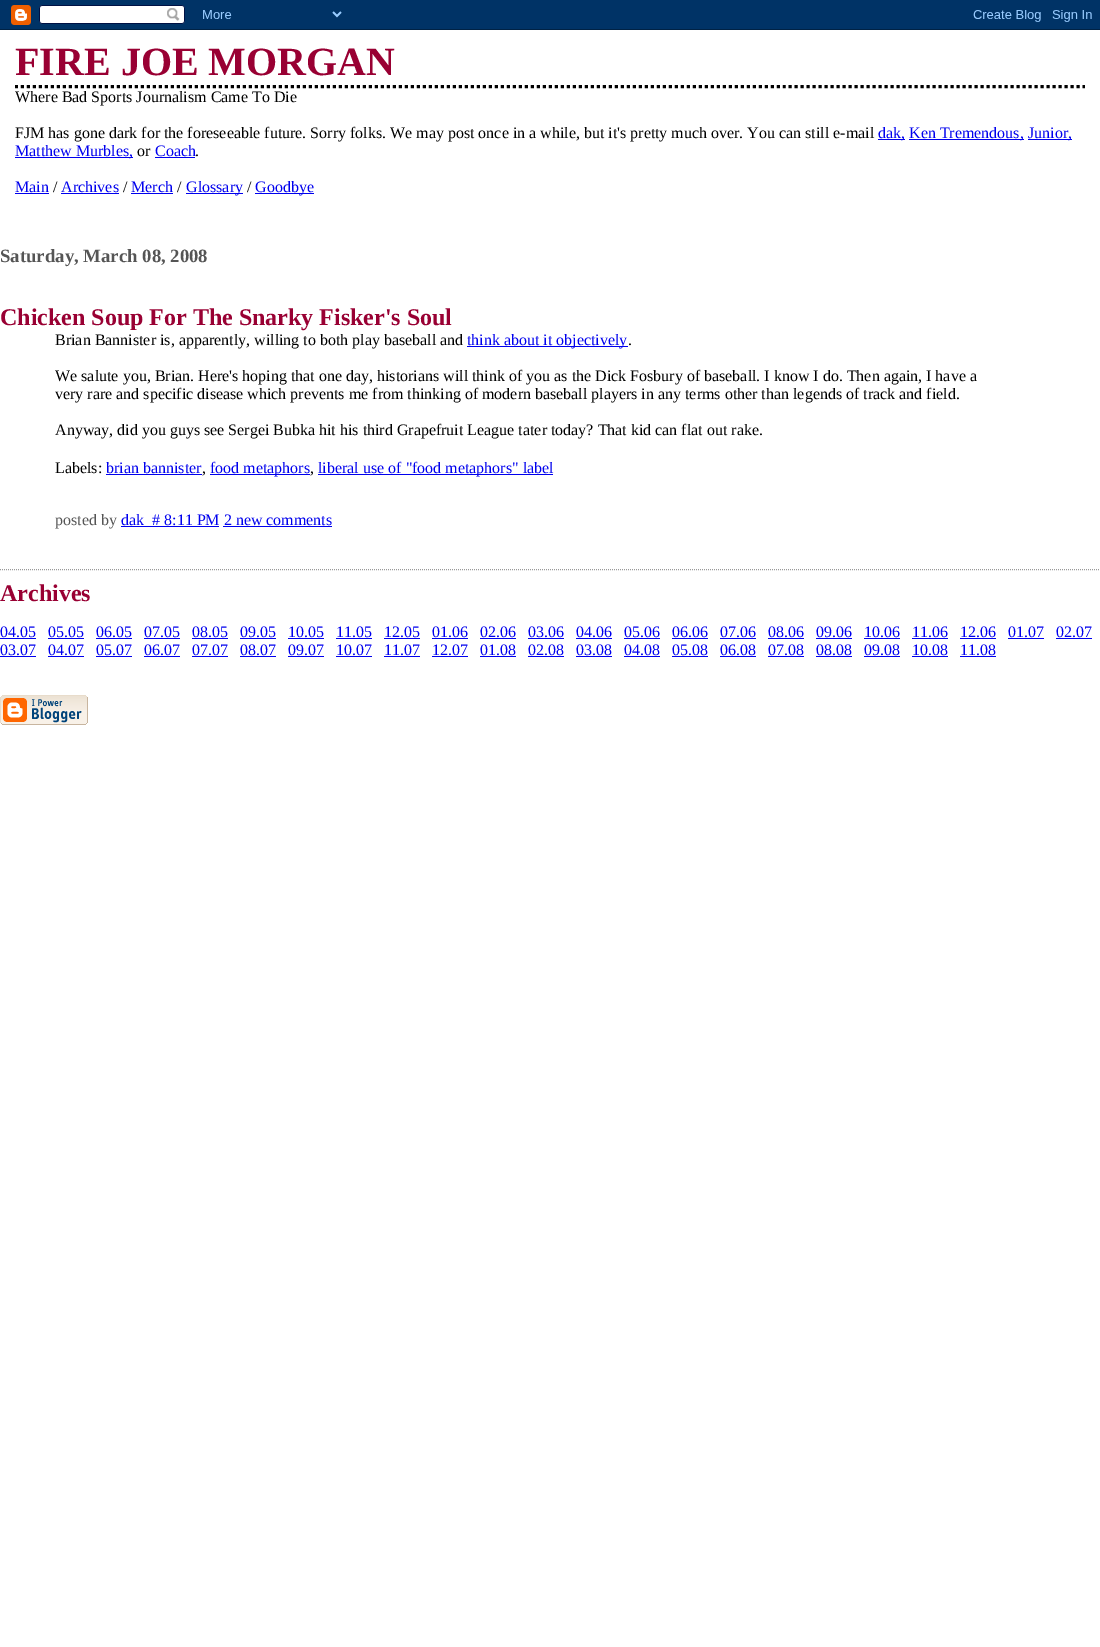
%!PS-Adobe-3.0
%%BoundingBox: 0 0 1100 1647
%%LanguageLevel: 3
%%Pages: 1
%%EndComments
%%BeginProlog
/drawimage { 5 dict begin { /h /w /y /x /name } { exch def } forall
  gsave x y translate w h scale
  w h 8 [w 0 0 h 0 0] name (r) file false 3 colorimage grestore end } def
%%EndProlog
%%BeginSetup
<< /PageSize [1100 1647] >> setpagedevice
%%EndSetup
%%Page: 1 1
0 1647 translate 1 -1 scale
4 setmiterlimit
1 setgray
0 0 1100 1647 rectfill
(images/1.raw) 0 0 1100 30 drawimage
0 setgray
3 setlinewidth
[3 3] 0 setdash
newpath 15 86.5 moveto 1085 86.5 lineto stroke
0 0 0.933 setrgbcolor
878 139 27 1 rectfill
909 139 115 1 rectfill
1028 139 44 1 rectfill
15 157 118 1 rectfill
155 157 40 1 rectfill
15 193 34 1 rectfill
61 193 58 1 rectfill
131 193 42 1 rectfill
186 193 57 1 rectfill
255 193 59 1 rectfill
467 346 161 1 rectfill
106 474 96 1 rectfill
210 474 100 1 rectfill
318 474 235 1 rectfill
121 526 98 1 rectfill
223 526 109 1 rectfill
0.6 setgray
1 setlinewidth
[1 1] 0 setdash
newpath 0 569.5 moveto 1100 569.5 lineto stroke
0 0 0.933 setrgbcolor
0 638 36 1 rectfill
48 638 36 1 rectfill
96 638 36 1 rectfill
144 638 36 1 rectfill
192 638 36 1 rectfill
240 638 36 1 rectfill
288 638 36 1 rectfill
336 638 36 1 rectfill
384 638 36 1 rectfill
432 638 36 1 rectfill
480 638 36 1 rectfill
528 638 36 1 rectfill
576 638 36 1 rectfill
624 638 36 1 rectfill
672 638 36 1 rectfill
720 638 36 1 rectfill
768 638 36 1 rectfill
816 638 36 1 rectfill
864 638 36 1 rectfill
912 638 36 1 rectfill
960 638 36 1 rectfill
1008 638 36 1 rectfill
1056 638 36 1 rectfill
0 656 36 1 rectfill
48 656 36 1 rectfill
96 656 36 1 rectfill
144 656 36 1 rectfill
192 656 36 1 rectfill
240 656 36 1 rectfill
288 656 36 1 rectfill
336 656 36 1 rectfill
384 656 36 1 rectfill
432 656 36 1 rectfill
480 656 36 1 rectfill
528 656 36 1 rectfill
576 656 36 1 rectfill
624 656 36 1 rectfill
672 656 36 1 rectfill
720 656 36 1 rectfill
768 656 36 1 rectfill
816 656 36 1 rectfill
864 656 36 1 rectfill
912 656 36 1 rectfill
960 656 36 1 rectfill
(images/2.raw) 0 695 88 30 drawimage
/LiberationSerif-Bold [40 0 0 -40 0 0] selectfont
0.6 0 0.2 setrgbcolor
15 75 moveto (FIRE JOE MORGAN) show
/LiberationSerif-Regular [16 0 0 -16 0 0] selectfont
0 setgray
15 102 moveto (Where Bad Sports Journalism Came To Die) show
15 138 moveto (FJM has gone dark for the foreseeable future. Sorry folks. We may post once in a while, but it's pretty much over. You can still e-mail) show
0 0 0.933 setrgbcolor
878 138 moveto (dak,) show
909 138 moveto (Ken Tremendous,) show
1028 138 moveto (Junior,) show
15 156 moveto (Matthew Murbles,) show
0 setgray
137 156 moveto (or) show
0 0 0.933 setrgbcolor
155 156 moveto (Coach) show
0 setgray
195 156 moveto (.) show
0 0 0.933 setrgbcolor
15 192 moveto (Main) show
0 setgray
53 192 moveto (/) show
0 0 0.933 setrgbcolor
61 192 moveto (Archives) show
0 setgray
123 192 moveto (/) show
0 0 0.933 setrgbcolor
131 192 moveto (Merch) show
0 setgray
177 192 moveto (/) show
0 0 0.933 setrgbcolor
186 192 moveto (Glossary) show
0 setgray
247 192 moveto (/) show
0 0 0.933 setrgbcolor
255 192 moveto (Goodbye) show
/LiberationSerif-Bold [18.75 0 0 -18.75 0 0] selectfont
0.333 setgray
0 262 moveto (Saturday, March 08, 2008) show
/LiberationSerif-Bold [24 0 0 -24 0 0] selectfont
0.6 0 0.2 setrgbcolor
0 325 moveto (Chicken Soup For The Snarky Fisker's Soul) show
/LiberationSerif-Regular [16 0 0 -16 0 0] selectfont
0 setgray
55 345 moveto (Brian Bannister is, apparently, willing to both play baseball and) show
0 0 0.933 setrgbcolor
467 345 moveto (think about it objectively) show
0 setgray
628 345 moveto (.) show
55 381 moveto (We salute you, Brian. Here's hoping that one day, historians will think of you as the Dick Fosbury of baseball. I know I do. Then again, I have a) show
55 399 moveto (very rare and specific disease which prevents me from thinking of modern baseball players in any terms other than legends of track and field.) show
55 435 moveto (Anyway, did you guys see Sergei Bubka hit his third Grapefruit League tater today? That kid can flat out rake.) show
55 473 moveto (Labels:) show
0 0 0.933 setrgbcolor
106 473 moveto (brian bannister) show
0 setgray
202 473 moveto (,) show
0 0 0.933 setrgbcolor
210 473 moveto (food metaphors) show
0 setgray
310 473 moveto (,) show
0 0 0.933 setrgbcolor
318 473 moveto (liberal use of "food metaphors" label) show
0.333 setgray
55 525 moveto (posted by) show
0 0 0.933 setrgbcolor
121 525 moveto (dak  # 8:11 PM 2 new comments) show
/LiberationSerif-Bold [24 0 0 -24 0 0] selectfont
0.6 0 0.2 setrgbcolor
0 601 moveto (Archives) show
/LiberationSerif-Regular [16 0 0 -16 0 0] selectfont
0 0 0.933 setrgbcolor
0 637 moveto (04.05) show
48 637 moveto (05.05) show
96 637 moveto (06.05) show
144 637 moveto (07.05) show
192 637 moveto (08.05) show
240 637 moveto (09.05) show
288 637 moveto (10.05) show
336 637 moveto (11.05) show
384 637 moveto (12.05) show
432 637 moveto (01.06) show
480 637 moveto (02.06) show
528 637 moveto (03.06) show
576 637 moveto (04.06) show
624 637 moveto (05.06) show
672 637 moveto (06.06) show
720 637 moveto (07.06) show
768 637 moveto (08.06) show
816 637 moveto (09.06) show
864 637 moveto (10.06) show
912 637 moveto (11.06) show
960 637 moveto (12.06) show
1008 637 moveto (01.07) show
1056 637 moveto (02.07) show
0 655 moveto (03.07) show
48 655 moveto (04.07) show
96 655 moveto (05.07) show
144 655 moveto (06.07) show
192 655 moveto (07.07) show
240 655 moveto (08.07) show
288 655 moveto (09.07) show
336 655 moveto (10.07) show
384 655 moveto (11.07) show
432 655 moveto (12.07) show
480 655 moveto (01.08) show
528 655 moveto (02.08) show
576 655 moveto (03.08) show
624 655 moveto (04.08) show
672 655 moveto (05.08) show
720 655 moveto (06.08) show
768 655 moveto (07.08) show
816 655 moveto (08.08) show
864 655 moveto (09.08) show
912 655 moveto (10.08) show
960 655 moveto (11.08) show
showpage
%%EOF
